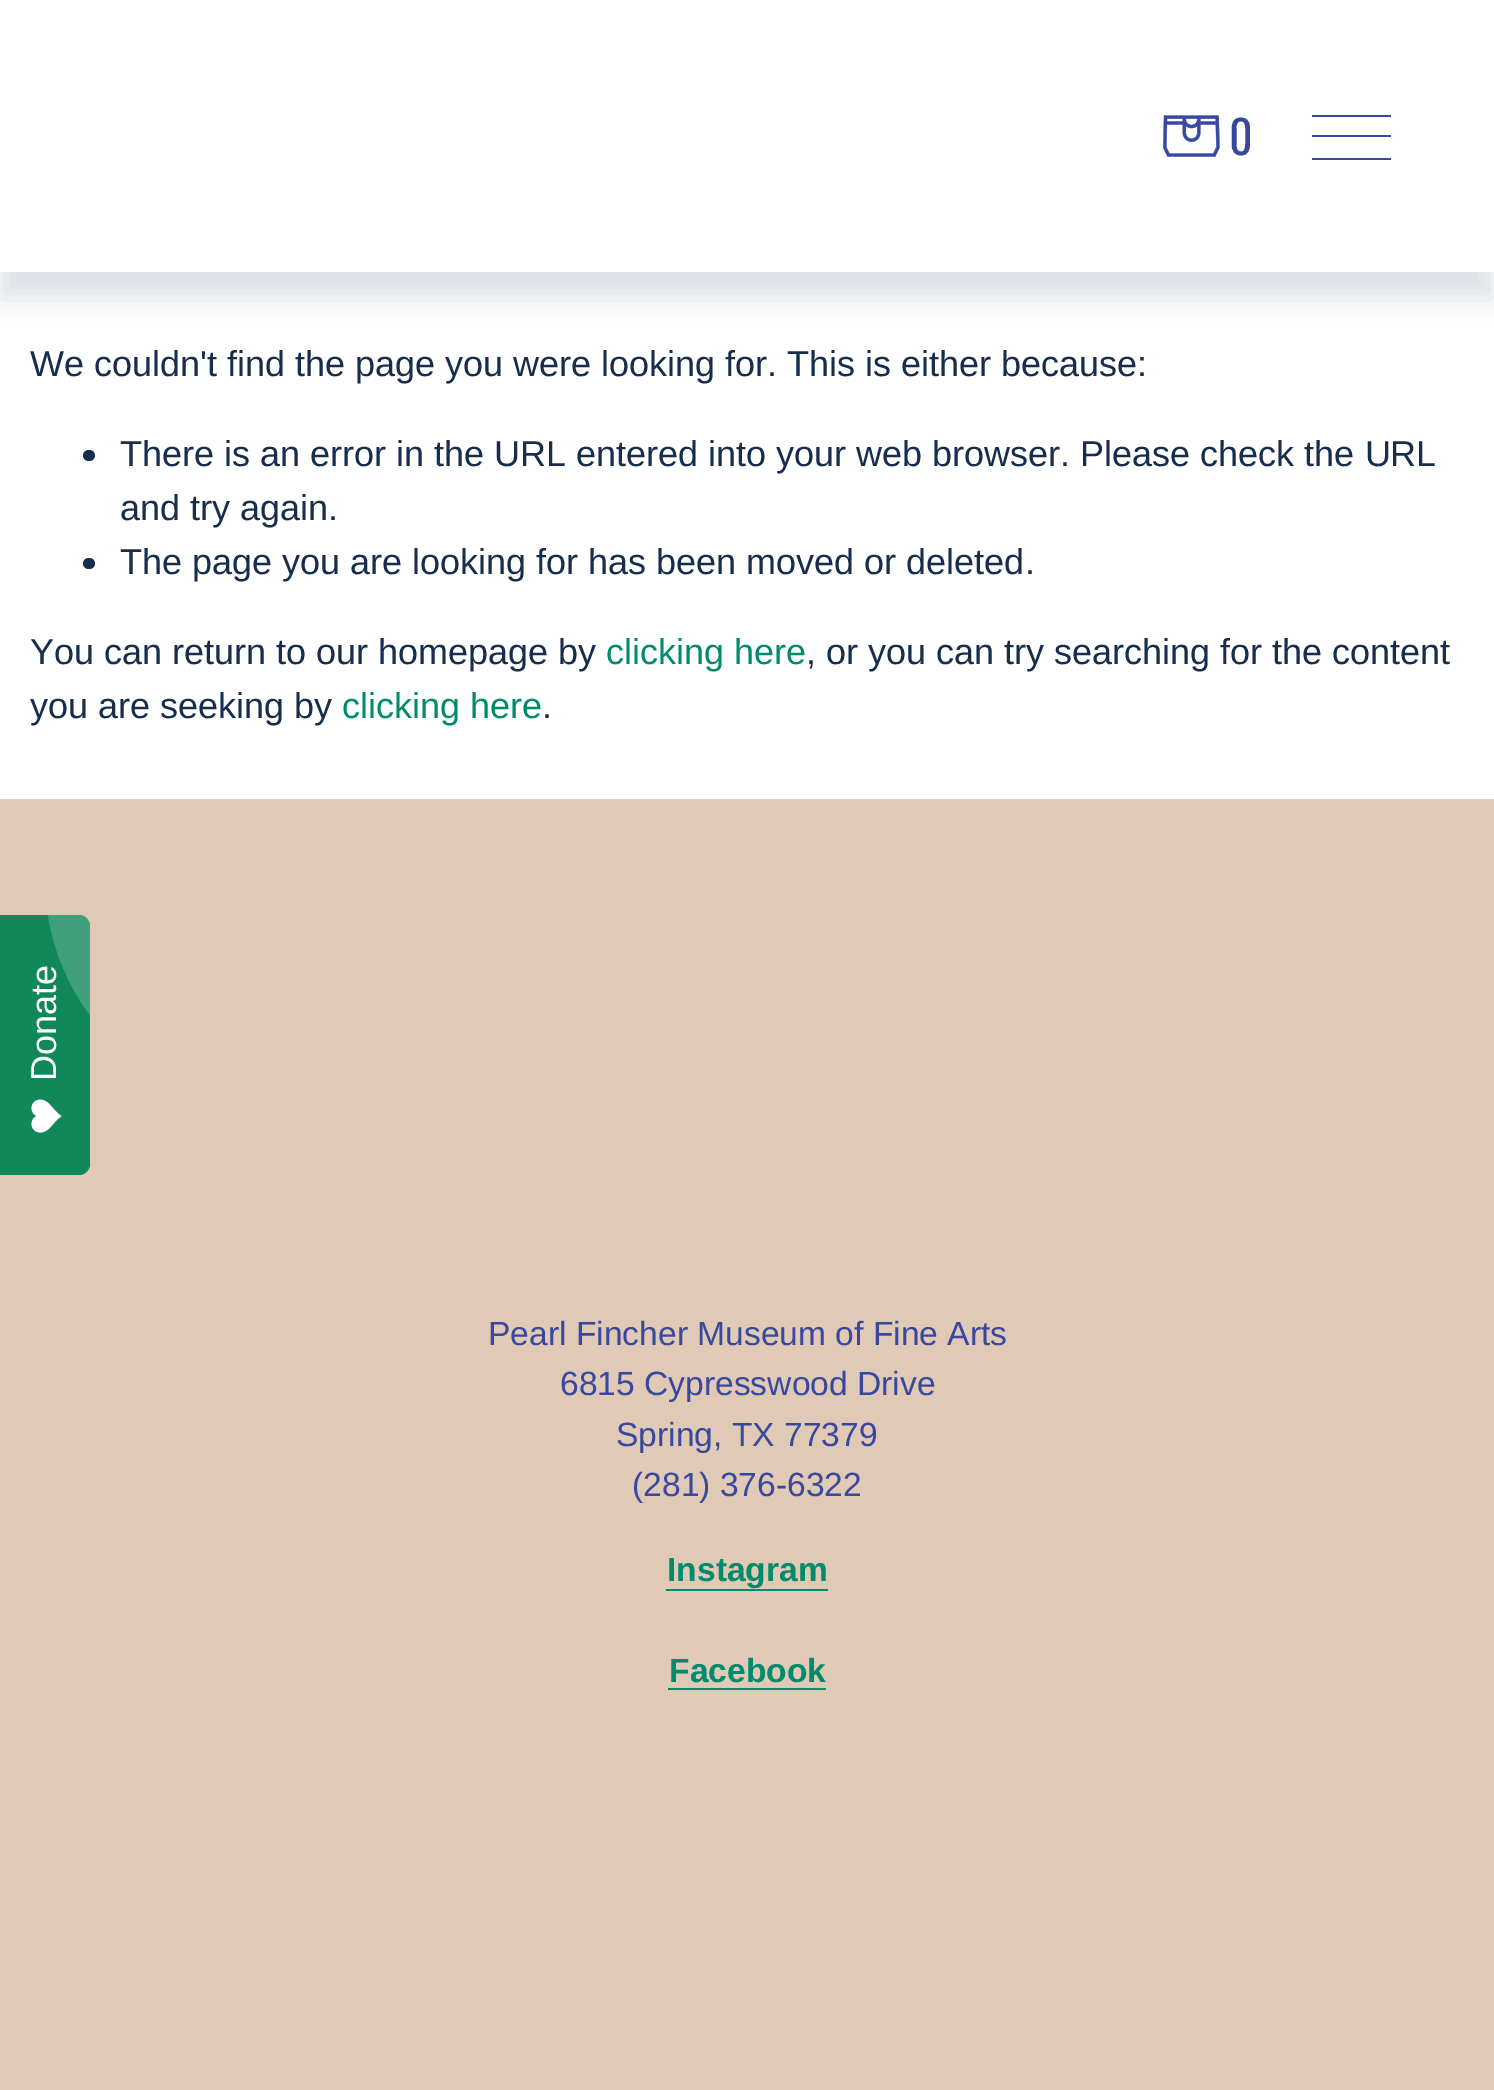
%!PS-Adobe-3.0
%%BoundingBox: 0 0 1494 2090
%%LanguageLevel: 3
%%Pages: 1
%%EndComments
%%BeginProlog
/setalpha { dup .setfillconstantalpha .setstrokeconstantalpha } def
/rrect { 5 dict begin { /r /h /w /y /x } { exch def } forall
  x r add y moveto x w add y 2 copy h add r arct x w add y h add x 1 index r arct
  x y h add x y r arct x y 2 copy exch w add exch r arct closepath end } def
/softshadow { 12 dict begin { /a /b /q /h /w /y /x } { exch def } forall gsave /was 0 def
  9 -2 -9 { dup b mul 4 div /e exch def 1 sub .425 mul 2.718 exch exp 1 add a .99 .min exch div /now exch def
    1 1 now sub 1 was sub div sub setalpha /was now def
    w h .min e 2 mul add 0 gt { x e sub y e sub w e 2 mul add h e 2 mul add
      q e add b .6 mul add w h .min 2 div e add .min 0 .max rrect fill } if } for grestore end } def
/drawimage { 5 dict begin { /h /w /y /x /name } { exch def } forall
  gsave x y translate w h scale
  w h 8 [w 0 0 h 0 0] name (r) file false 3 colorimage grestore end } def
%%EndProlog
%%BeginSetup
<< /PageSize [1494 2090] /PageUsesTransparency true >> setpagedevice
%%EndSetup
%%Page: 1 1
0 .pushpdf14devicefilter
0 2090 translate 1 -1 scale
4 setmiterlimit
1 setgray
0 0 1494 2090 rectfill
gsave
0 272 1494 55 rectclip
0.863 0.878 0.894 setrgbcolor
0 27 1494 272 0 13.5 1 softshadow
grestore
(images/1.raw) 1163 115 57 42 drawimage
0.22 0.282 0.624 setrgbcolor
1312 115 79 2 rectfill
1312 135 79 2 rectfill
1312 158 79 2 rectfill
0.086 0.176 0.302 setrgbcolor
83 450 12 11 5.5 rrect fill
83 558 12 11 5.5 rrect fill
0.878 0.788 0.71 setrgbcolor
0 799 1494 1291 rectfill
0 0.545 0.427 setrgbcolor
666 1589 162 2 rectfill
668 1688 158 2 rectfill
0.063 0.533 0.353 setrgbcolor
newpath 0 1175 moveto 0 915 lineto 79 915 lineto 85 915 90 920 90 926 curveto 90 1164 lineto 90 1170 85 1175 79 1175 curveto closepath fill
(images/2.raw) 31 1099 31 34 drawimage
/Oswald-Regular [46 0 0 -46 0 0] selectfont
0.22 0.282 0.624 setrgbcolor
1229 155 moveto -1 0 (0) ashow
/Arimo-Regular [36 0 0 -36 0 0] selectfont
0.086 0.176 0.302 setrgbcolor
30 376 moveto (We couldn't find the page you were looking for. This is either because:) show
120 466 moveto (There is an error in the URL entered into your web browser. Please check the URL) show
120 520 moveto (and try again.) show
120 574 moveto (The page you are looking for has been moved or deleted.) show
30 664 moveto (You can return to our homepage by) show
0 0.545 0.427 setrgbcolor
606 664 moveto (clicking here) show
0.086 0.176 0.302 setrgbcolor
806 664 moveto (, or you can try searching for the content) show
30 718 moveto (you are seeking by) show
0 0.545 0.427 setrgbcolor
342 718 moveto (clicking here) show
0.086 0.176 0.302 setrgbcolor
542 718 moveto (.) show
/Arimo-Regular [33.6 0 0 -33.6 0 0] selectfont
0.22 0.282 0.624 setrgbcolor
488 1345 moveto (Pearl Fincher Museum of Fine Arts) show
560 1395 moveto (6815 Cypresswood Drive) show
616 1446 moveto (Spring, TX 77379) show
632 1496 moveto (\(281\) 376-6322) show
/Arimo-Bold [33.6 0 0 -33.6 0 0] selectfont
0 0.545 0.427 setrgbcolor
667 1581 moveto (Instagram) show
669 1682 moveto (Facebook) show
/LiberationSans-Regular [36 0 0 -36 0 0] selectfont
1 setgray
gsave 56 1081 translate -90 rotate 0 0 moveto (Donate) show grestore
0.2 setalpha
newpath 90 1015 moveto 68 986 54 952 48 915 curveto 79 915 lineto 85 915 90 920 90 926 curveto closepath fill
.poppdf14devicefilter showpage
%%EOF
